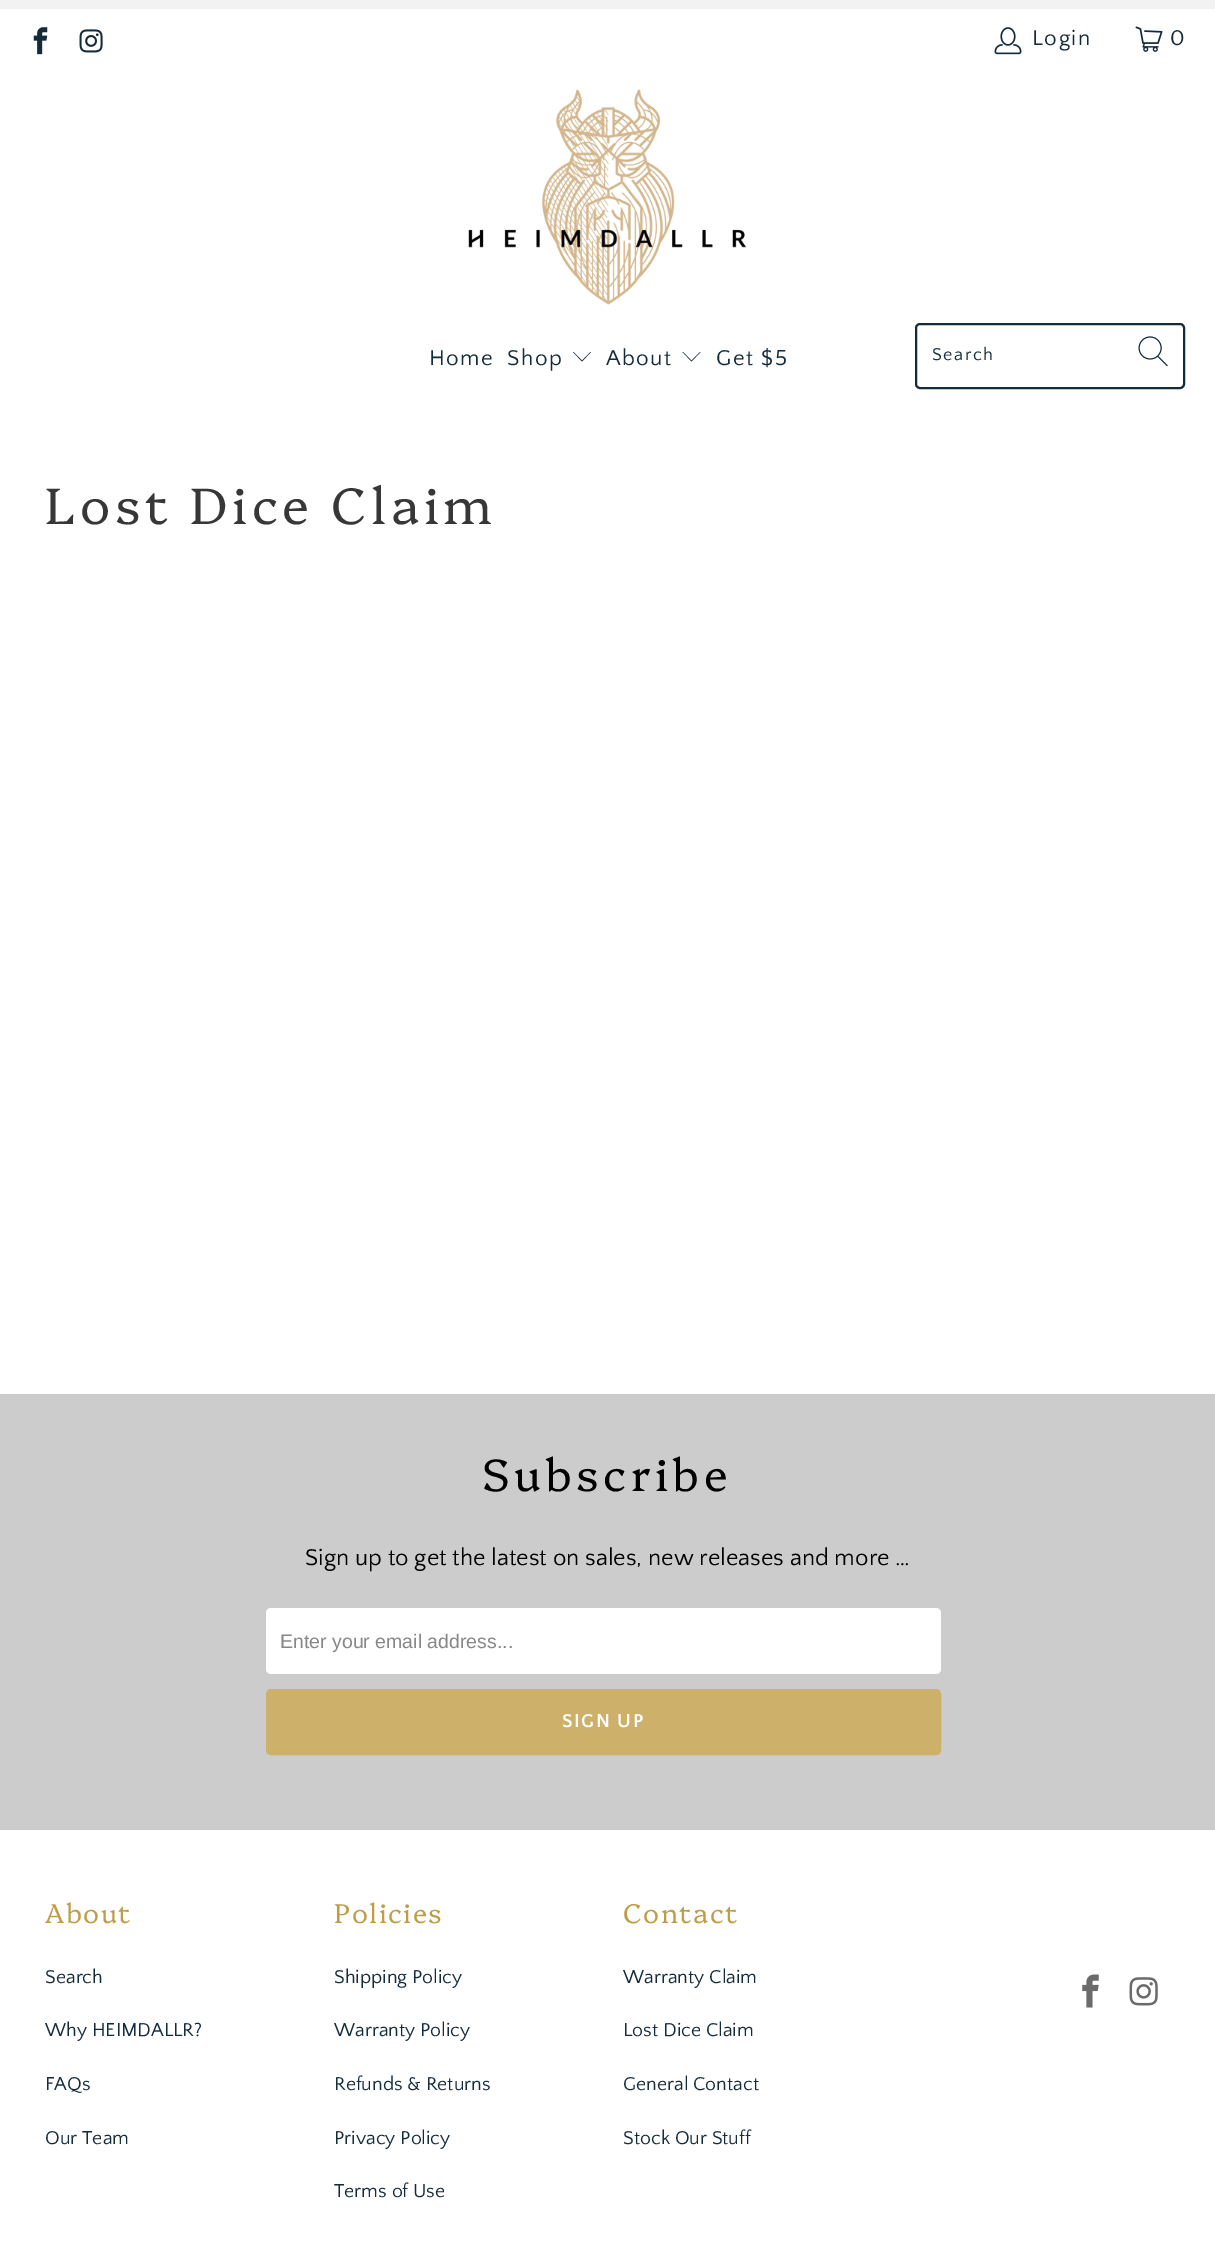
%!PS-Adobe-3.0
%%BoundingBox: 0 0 1215 2246
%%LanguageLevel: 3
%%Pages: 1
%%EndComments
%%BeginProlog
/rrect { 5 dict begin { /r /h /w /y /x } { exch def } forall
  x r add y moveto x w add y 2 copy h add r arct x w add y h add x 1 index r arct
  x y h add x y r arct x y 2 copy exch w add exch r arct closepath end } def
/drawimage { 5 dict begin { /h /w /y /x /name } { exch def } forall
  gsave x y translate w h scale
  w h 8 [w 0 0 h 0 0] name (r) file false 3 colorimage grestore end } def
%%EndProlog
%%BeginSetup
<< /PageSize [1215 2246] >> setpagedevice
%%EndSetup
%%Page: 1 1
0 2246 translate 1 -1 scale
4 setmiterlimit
1 setgray
0 0 1215 2246 rectfill
0.949 setgray
0 0 1215 9 rectfill
(images/1.raw) 33 27 15 28 drawimage
(images/2.raw) 79 29 24 24 drawimage
(images/3.raw) 994 27 28 28 drawimage
(images/4.raw) 1135 26 28 26 drawimage
(images/5.raw) 468 89 279 216 drawimage
0.078 0.169 0.231 setrgbcolor
newpath 582 361.5 moveto 573 352 lineto 573.5 352 lineto 582 360.5 lineto 590.5 352 lineto 591 352 lineto closepath fill
newpath 691.5 361.5 moveto 682.5 352 lineto 683 352 lineto 691.5 360.5 lineto 700 352 lineto 700.5 352 lineto closepath fill
2 setlinewidth
916 324 268 64 4 rrect stroke
(images/6.raw) 1138 336 30 31 drawimage
0.8 setgray
0 1394 1215 436 rectfill
1 setgray
266 1608 675 66 5 rrect fill
0.804 0.694 0.416 setrgbcolor
267 1690 673 64 4 rrect gsave fill grestore
stroke
(images/7.raw) 1082 1974 17 34 drawimage
(images/8.raw) 1129 1977 29 29 drawimage
/QuattrocentoSans-Regular [22.5 0 0 -22.5 0 0] selectfont
0.078 0.169 0.231 setrgbcolor
1032 45 moveto 1.5 0 (Login) ashow
1170 45 moveto 1.5 0 (0) ashow
429 365 moveto 1.5 0 (Home) ashow
507 365 moveto 1.5 0 (Shop) ashow
606 365 moveto 1.5 0 (About) ashow
716 365 moveto 1.5 0 (Get $5) ashow
/QuattrocentoSans-Regular [18 0 0 -18 0 0] selectfont
932 360 moveto 1.5 0 (Search) ashow
/Platypi-Light [51 0 0 -51 0 0] selectfont
0.216 setgray
45 524 moveto 4.5 0 (Lost Dice Claim) ashow
/Platypi-Light [45 0 0 -45 0 0] selectfont
0 setgray
482 1491 moveto 4.5 0 (Subscribe) ashow
/QuattrocentoSans-Regular [24 0 0 -24 0 0] selectfont
305 1565 moveto (Sign up to get the latest on sales, new releases and more …) show
/LiberationSans-Regular [19.5 0 0 -19.5 0 0] selectfont
0.533 setgray
280 1648 moveto (Enter your email address...) show
/QuattrocentoSans-Bold [19.5 0 0 -19.5 0 0] selectfont
1 setgray
562 1727 moveto 1.5 0 (SIGN UP) ashow
/Platypi-Light [27 0 0 -27 0 0] selectfont
0.753 0.616 0.267 setrgbcolor
45 1923 moveto 1.5 0 (About) ashow
/QuattrocentoSans-Regular [19.5 0 0 -19.5 0 0] selectfont
0.078 0.169 0.231 setrgbcolor
45 1983 moveto (Search) show
45 2036 moveto (Why HEIMDALLR?) show
45 2090 moveto (FAQs) show
45 2144 moveto (Our Team) show
/Platypi-Light [27 0 0 -27 0 0] selectfont
0.753 0.616 0.267 setrgbcolor
334 1923 moveto 1.5 0 (Policies) ashow
/QuattrocentoSans-Regular [19.5 0 0 -19.5 0 0] selectfont
0.078 0.169 0.231 setrgbcolor
334 1983 moveto (Shipping Policy) show
334 2036 moveto (Warranty Policy) show
334 2090 moveto (Refunds & Returns) show
334 2144 moveto (Privacy Policy) show
334 2197 moveto (Terms of Use) show
/Platypi-Light [27 0 0 -27 0 0] selectfont
0.753 0.616 0.267 setrgbcolor
623 1923 moveto 1.5 0 (Contact) ashow
/QuattrocentoSans-Regular [19.5 0 0 -19.5 0 0] selectfont
0.078 0.169 0.231 setrgbcolor
623 1983 moveto (Warranty Claim) show
623 2036 moveto (Lost Dice Claim) show
623 2090 moveto (General Contact) show
623 2144 moveto (Stock Our Stuff) show
showpage
%%EOF
